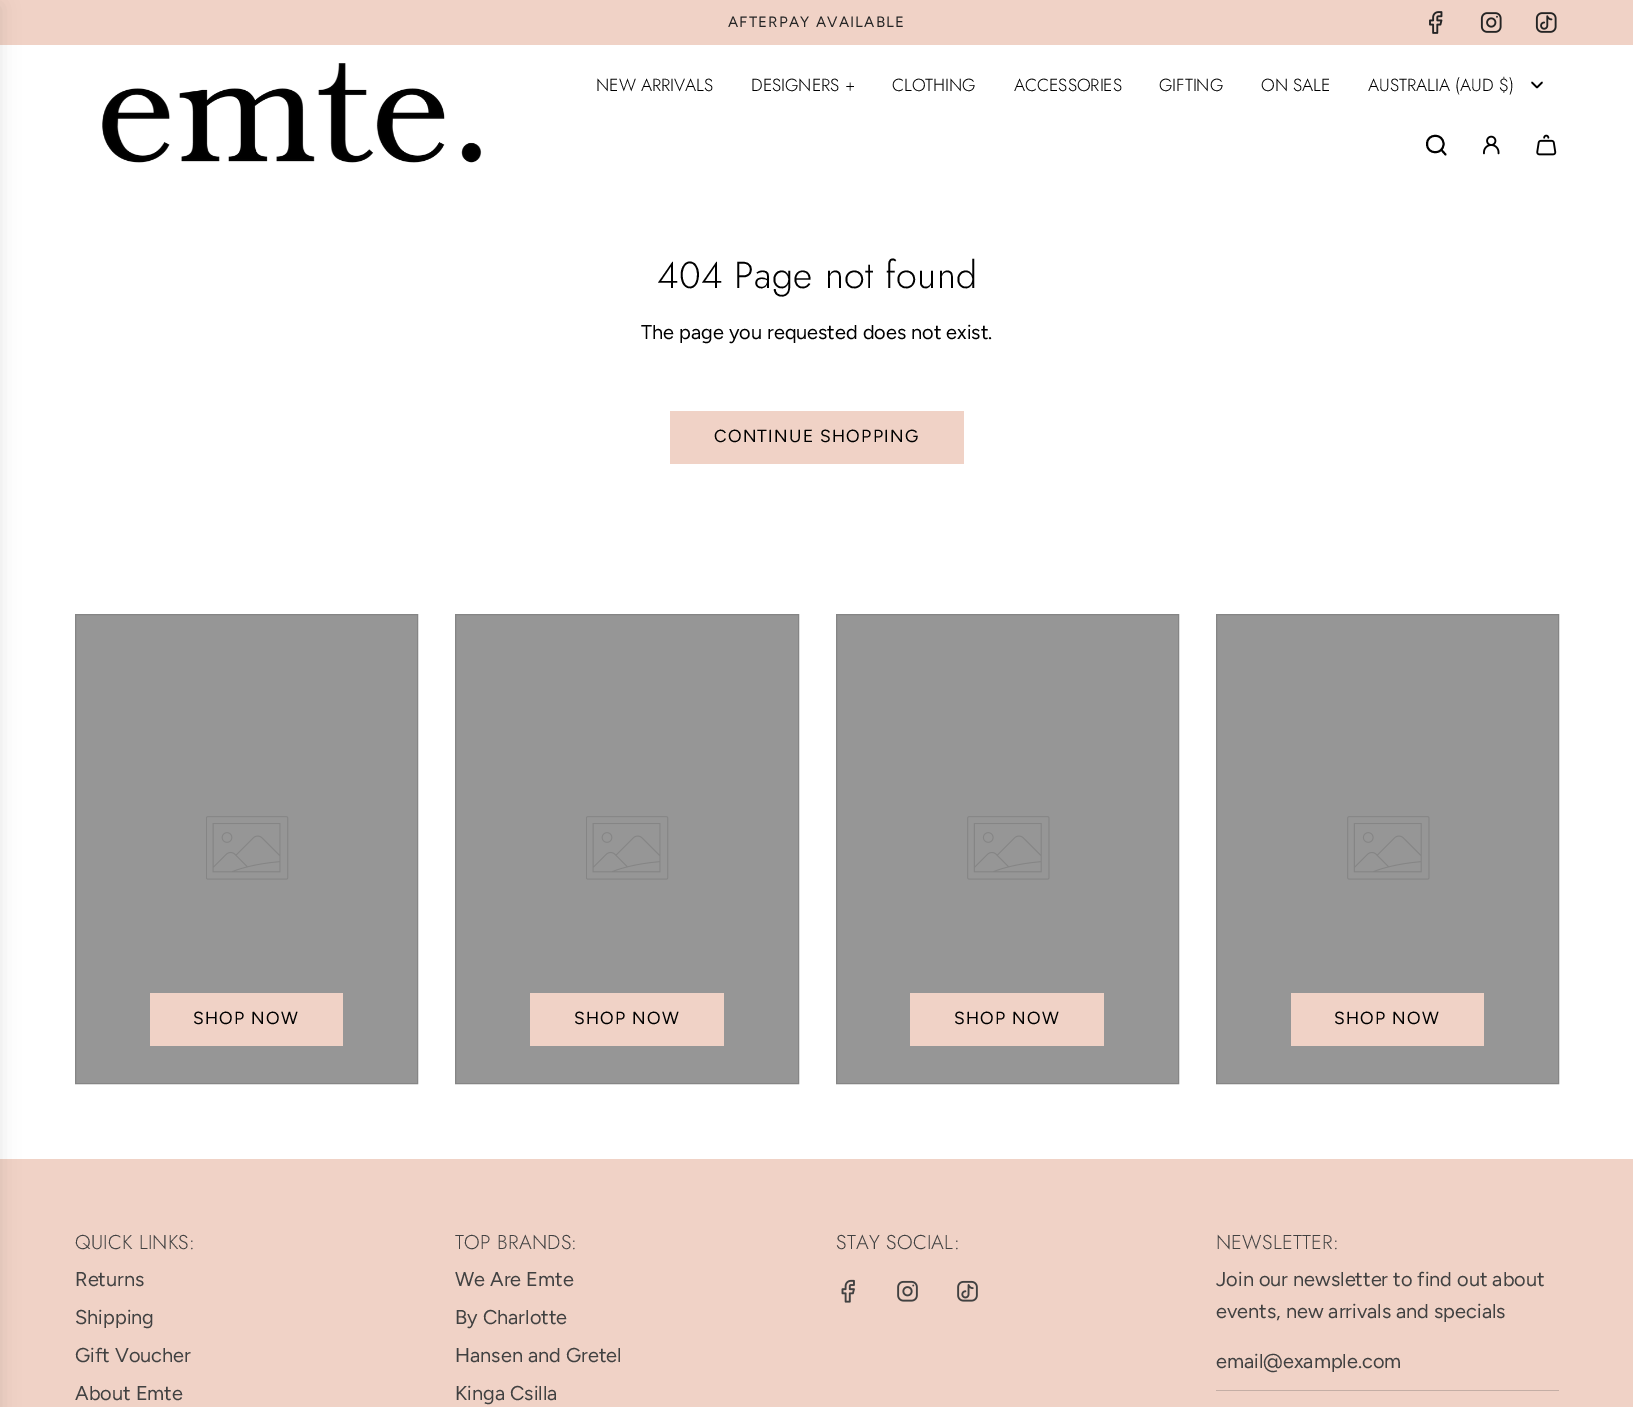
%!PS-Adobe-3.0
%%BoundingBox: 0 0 1633 1407
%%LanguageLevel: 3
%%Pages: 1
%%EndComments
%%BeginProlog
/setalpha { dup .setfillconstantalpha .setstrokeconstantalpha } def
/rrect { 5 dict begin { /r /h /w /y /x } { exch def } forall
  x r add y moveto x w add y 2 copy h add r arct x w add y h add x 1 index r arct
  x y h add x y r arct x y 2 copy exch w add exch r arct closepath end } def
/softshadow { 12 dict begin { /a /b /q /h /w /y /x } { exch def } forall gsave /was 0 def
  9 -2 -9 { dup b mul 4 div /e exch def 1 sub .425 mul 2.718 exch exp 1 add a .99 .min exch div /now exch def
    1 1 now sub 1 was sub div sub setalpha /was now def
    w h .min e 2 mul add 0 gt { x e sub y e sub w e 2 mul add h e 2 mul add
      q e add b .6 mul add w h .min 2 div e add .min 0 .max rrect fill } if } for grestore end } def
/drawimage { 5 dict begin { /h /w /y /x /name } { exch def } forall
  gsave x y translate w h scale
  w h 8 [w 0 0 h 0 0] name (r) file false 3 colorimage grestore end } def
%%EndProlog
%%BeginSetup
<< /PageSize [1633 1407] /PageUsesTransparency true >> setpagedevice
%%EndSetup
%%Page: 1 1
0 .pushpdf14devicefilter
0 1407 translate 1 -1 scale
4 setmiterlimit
1 setgray
0 0 1633 1407 rectfill
0.941 0.824 0.776 setrgbcolor
0 0 1633 45 rectfill
(images/1.raw) 1429 11 14 23 drawimage
(images/2.raw) 1480 12 22 21 drawimage
(images/3.raw) 1535 12 22 21 drawimage
0 1159 1633 248 rectfill
0 setgray
-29 6 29 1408 0 9.5 0.1 softshadow
(images/4.raw) 102 63 380 100 drawimage
1.5 setlinewidth
1 setlinecap
1 setlinejoin
newpath 1532 82.5 moveto 1537 87.5 lineto 1542 82.5 lineto stroke
1.9 setlinewidth
newpath 1441.5 150 moveto 1445.5 154.5 lineto 1427 144 moveto 1427 155 1443.5 155 1443.5 144 curveto 1443.5 133 1427 133 1427 144 curveto closepath stroke
(images/5.raw) 1483 135 17 20 drawimage
(images/6.raw) 1536 134 21 22 drawimage
0.941 0.824 0.776 setrgbcolor
670 411 294 53 rectfill
0.588 setgray
newpath 75.5 614.5 moveto 417.5 614.5 lineto 417.5 1083.5 lineto 75.5 1083.5 lineto closepath gsave fill grestore
0.522 setgray
1 setlinewidth
0 setlinecap
0 setlinejoin
stroke
(images/7.raw) 206 816 83 64 drawimage
0.941 0.824 0.776 setrgbcolor
150 993 193 53 rectfill
0.588 setgray
newpath 455.5 614.5 moveto 798.5 614.5 lineto 798.5 1083.5 lineto 455.5 1083.5 lineto closepath gsave fill grestore
0.522 setgray
stroke
(images/7.raw) 586 816 83 64 drawimage
0.941 0.824 0.776 setrgbcolor
530 993 194 53 rectfill
0.588 setgray
newpath 836.5 614.5 moveto 1178.5 614.5 lineto 1178.5 1083.5 lineto 836.5 1083.5 lineto closepath gsave fill grestore
0.522 setgray
stroke
(images/8.raw) 967 816 83 64 drawimage
0.941 0.824 0.776 setrgbcolor
910 993 194 53 rectfill
0.588 setgray
newpath 1216.5 614.5 moveto 1558.5 614.5 lineto 1558.5 1083.5 lineto 1216.5 1083.5 lineto closepath gsave fill grestore
0.522 setgray
stroke
(images/8.raw) 1347 816 83 64 drawimage
0.941 0.824 0.776 setrgbcolor
1291 993 193 53 rectfill
(images/9.raw) 841 1279 14 24 drawimage
(images/10.raw) 897 1280 21 22 drawimage
(images/11.raw) 957 1280 21 22 drawimage
0.769 0.682 0.647 setrgbcolor
1216 1390 343 1 rectfill
/Figtree-Regular [15 0 0 -15 0 0] selectfont
0.141 setgray
728 27 moveto 1.25 0 (AFTERPAY AVAILABLE) ashow
/Jost-Light [17.5 0 0 -17.5 0 0] selectfont
0 setgray
596 91 moveto (NEW ARRIVALS) show
751 91 moveto (DESIGNERS +) show
892 91 moveto (CLOTHING) show
1014 91 moveto (ACCESSORIES) show
1159 91 moveto (GIFTING) show
1261 91 moveto (ON SALE) show
1368 91 moveto (AUSTRALIA \(AUD $\)) show
/Jost-Light [37.5 0 0 -37.5 0 0] selectfont
657 288 moveto 0.4 0 (404 Page not found) ashow
/Figtree-Regular [20 0 0 -20 0 0] selectfont
641 339 moveto (The page you requested does not exist.) show
/Figtree-Regular [17.5 0 0 -17.5 0 0] selectfont
714 442 moveto 1.25 0 (CONTINUE SHOPPING) ashow
193 1024 moveto 1.25 0 (SHOP NOW) ashow
574 1024 moveto 1.25 0 (SHOP NOW) ashow
954 1024 moveto 1.25 0 (SHOP NOW) ashow
1334 1024 moveto 1.25 0 (SHOP NOW) ashow
/Jost-Light [20 0 0 -20 0 0] selectfont
0.255 setgray
75 1249 moveto 0.25 0 (QUICK LINKS:) ashow
/Figtree-Regular [20 0 0 -20 0 0] selectfont
75 1286 moveto (Returns) show
75 1324 moveto (Shipping) show
75 1362 moveto (Gift Voucher) show
75 1400 moveto (About Emte) show
/Jost-Light [20 0 0 -20 0 0] selectfont
455 1249 moveto 0.25 0 (TOP BRANDS:) ashow
/Figtree-Regular [20 0 0 -20 0 0] selectfont
455 1286 moveto (We Are Emte) show
455 1324 moveto (By Charlotte) show
455 1362 moveto (Hansen and Gretel) show
455 1400 moveto (Kinga Csilla) show
/Jost-Light [20 0 0 -20 0 0] selectfont
836 1249 moveto 0.25 0 (STAY SOCIAL:) ashow
1216 1249 moveto 0.25 0 (NEWSLETTER:) ashow
/Figtree-Regular [20 0 0 -20 0 0] selectfont
1216 1286 moveto (Join our newsletter to find out about) show
1216 1318 moveto (events, new arrivals and specials) show
1216 1368 moveto (email@example.com) show
.poppdf14devicefilter showpage
%%EOF
